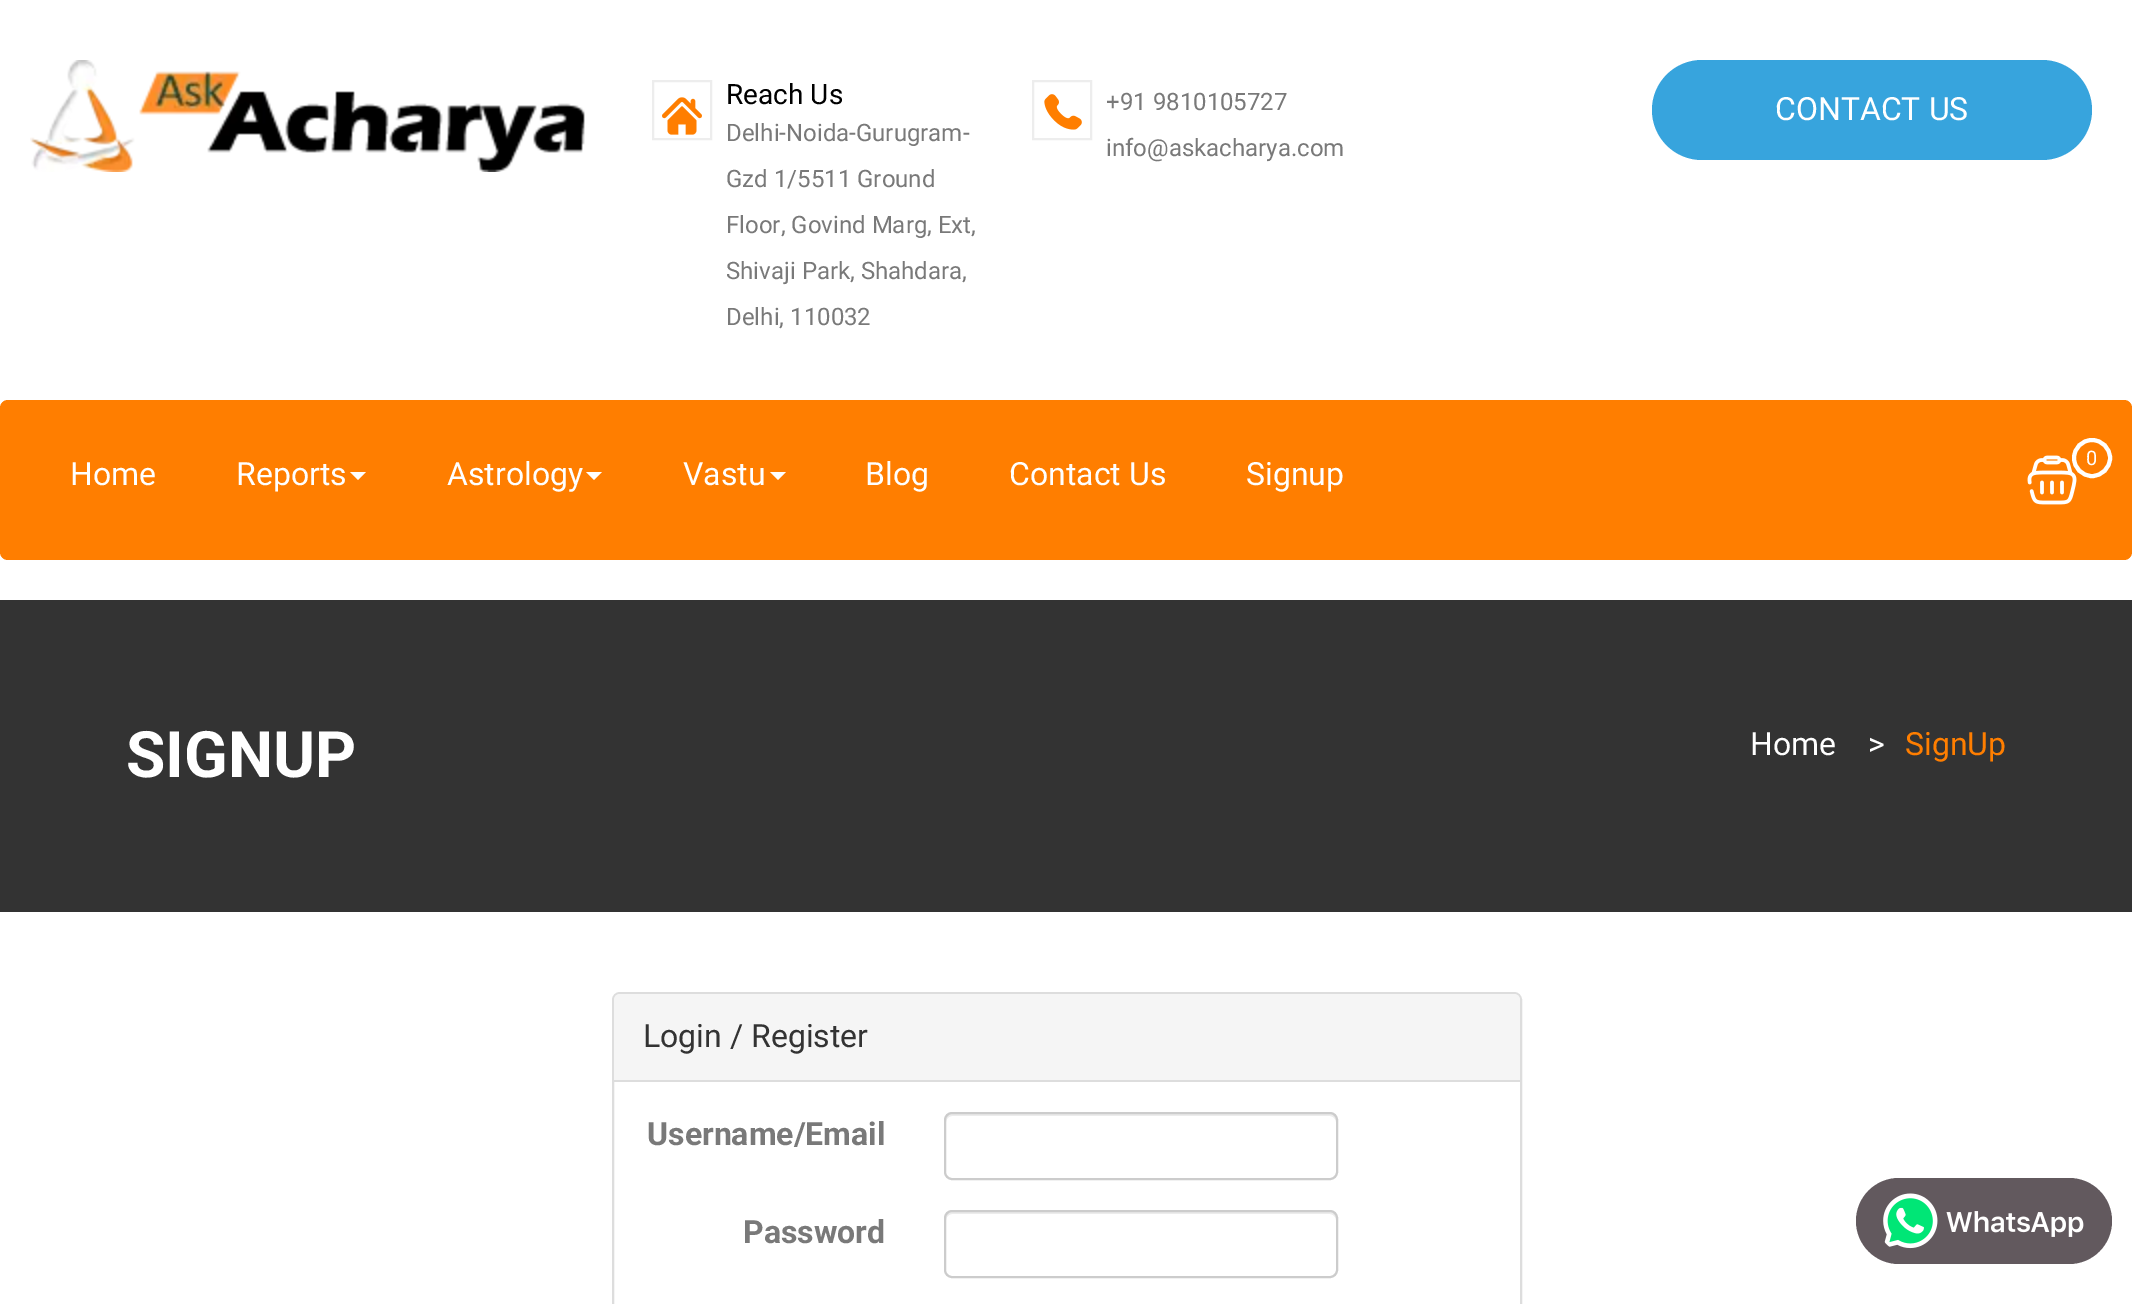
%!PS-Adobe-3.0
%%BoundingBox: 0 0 2132 1304
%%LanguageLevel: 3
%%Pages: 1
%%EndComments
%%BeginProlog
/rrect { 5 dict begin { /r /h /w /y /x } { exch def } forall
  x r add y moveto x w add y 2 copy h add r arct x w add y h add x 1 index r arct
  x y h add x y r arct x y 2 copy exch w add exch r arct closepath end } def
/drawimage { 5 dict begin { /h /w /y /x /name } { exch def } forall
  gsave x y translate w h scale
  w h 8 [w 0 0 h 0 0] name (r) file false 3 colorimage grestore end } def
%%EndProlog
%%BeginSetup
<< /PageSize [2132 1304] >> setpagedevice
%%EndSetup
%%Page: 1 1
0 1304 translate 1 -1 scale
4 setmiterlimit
1 setgray
0 0 2132 1304 rectfill
(images/1.raw) 30 60 555 112 drawimage
0.929 setgray
2 setlinewidth
653 81 58 58 rectstroke
(images/2.raw) 662 97 40 38 drawimage
1033 81 58 58 rectstroke
(images/3.raw) 1044 94 38 36 drawimage
0.216 0.643 0.867 setrgbcolor
1652 60 440 100 50 rrect fill
1 0.494 0 setrgbcolor
0 400 2132 160 8 rrect fill
(images/4.raw) 2027 455 50 50 drawimage
1 setgray
4 setlinewidth
newpath 2092 458 18 0 360 arc closepath stroke
newpath 350 472 moveto 366 472 lineto 358 480 lineto closepath fill
newpath 586 472 moveto 602 472 lineto 594 480 lineto closepath fill
newpath 770 472 moveto 786 472 lineto 778 480 lineto closepath fill
0.2 setgray
0 600 2132 312 rectfill
0.867 setgray
2 setlinewidth
613 993 908 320 7 rrect stroke
0.961 setgray
newpath 620 994 moveto 1514 994 lineto 1517.5 994 1520 996.5 1520 1000 curveto 1520 1082 lineto 614 1082 lineto 614 1000 lineto 614 996.5 616.5 994 620 994 curveto closepath fill
0.867 setgray
614 1080 906 2 rectfill
0.925 setgray
newpath 952 1116 moveto 1330 1116 lineto 1333 1116 1336 1119 1336 1122 curveto 1336 1118 1335 1114 1330 1114 curveto 952 1114 lineto 947 1114 946 1118 946 1122 curveto 946 1119 949 1116 952 1116 curveto closepath fill
0.8 setgray
945 1113 392 66 7 rrect stroke
0.925 setgray
newpath 952 1214 moveto 1330 1214 lineto 1333 1214 1336 1217 1336 1220 curveto 1336 1216 1335 1212 1330 1212 curveto 952 1212 lineto 947 1212 946 1216 946 1220 curveto 946 1217 949 1214 952 1214 curveto closepath fill
0.8 setgray
945 1211 392 66 7 rrect stroke
0.384 0.349 0.369 setrgbcolor
1856 1178 256 86 43 rrect fill
(images/5.raw) 1883 1193 201 56 drawimage
/Roboto-Regular [28 0 0 -28 0 0] selectfont
0 setgray
726 104 moveto (Reach Us) show
/Roboto-Regular [24 0 0 -24 0 0] selectfont
0.475 setgray
726 141 moveto (Delhi-Noida-Gurugram-) show
726 187 moveto (Gzd 1/5511 Ground) show
726 233 moveto (Floor, Govind Marg, Ext,) show
726 279 moveto (Shivaji Park, Shahdara,) show
726 325 moveto (Delhi, 110032) show
1106 110 moveto (+91 9810105727) show
1106 156 moveto (info@askacharya.com) show
/Roboto-Regular [32 0 0 -32 0 0] selectfont
1 setgray
1775 120 moveto (CONTACT US) show
/Roboto-Regular [20 0 0 -20 0 0] selectfont
2086 465 moveto (0) show
/Roboto-Regular [32 0 0 -32 0 0] selectfont
70 485 moveto (Home) show
236 485 moveto (Reports) show
447 485 moveto (Astrology) show
683 485 moveto (Vastu) show
865 485 moveto (Blog) show
1009 485 moveto (Contact Us) show
1246 485 moveto (Signup) show
/Roboto-Bold [64 0 0 -64 0 0] selectfont
126 777 moveto (SIGNUP) show
/Roboto-Regular [32 0 0 -32 0 0] selectfont
1750 755 moveto (Home) show
1868 755 moveto (>) show
1 0.494 0 setrgbcolor
1905 755 moveto (SignUp) show
0.2 setgray
643 1047 moveto (Login / Register) show
/Roboto-Bold [32 0 0 -32 0 0] selectfont
0.475 setgray
647 1145 moveto (Username/Email) show
743 1243 moveto (Password) show
showpage
%%EOF
